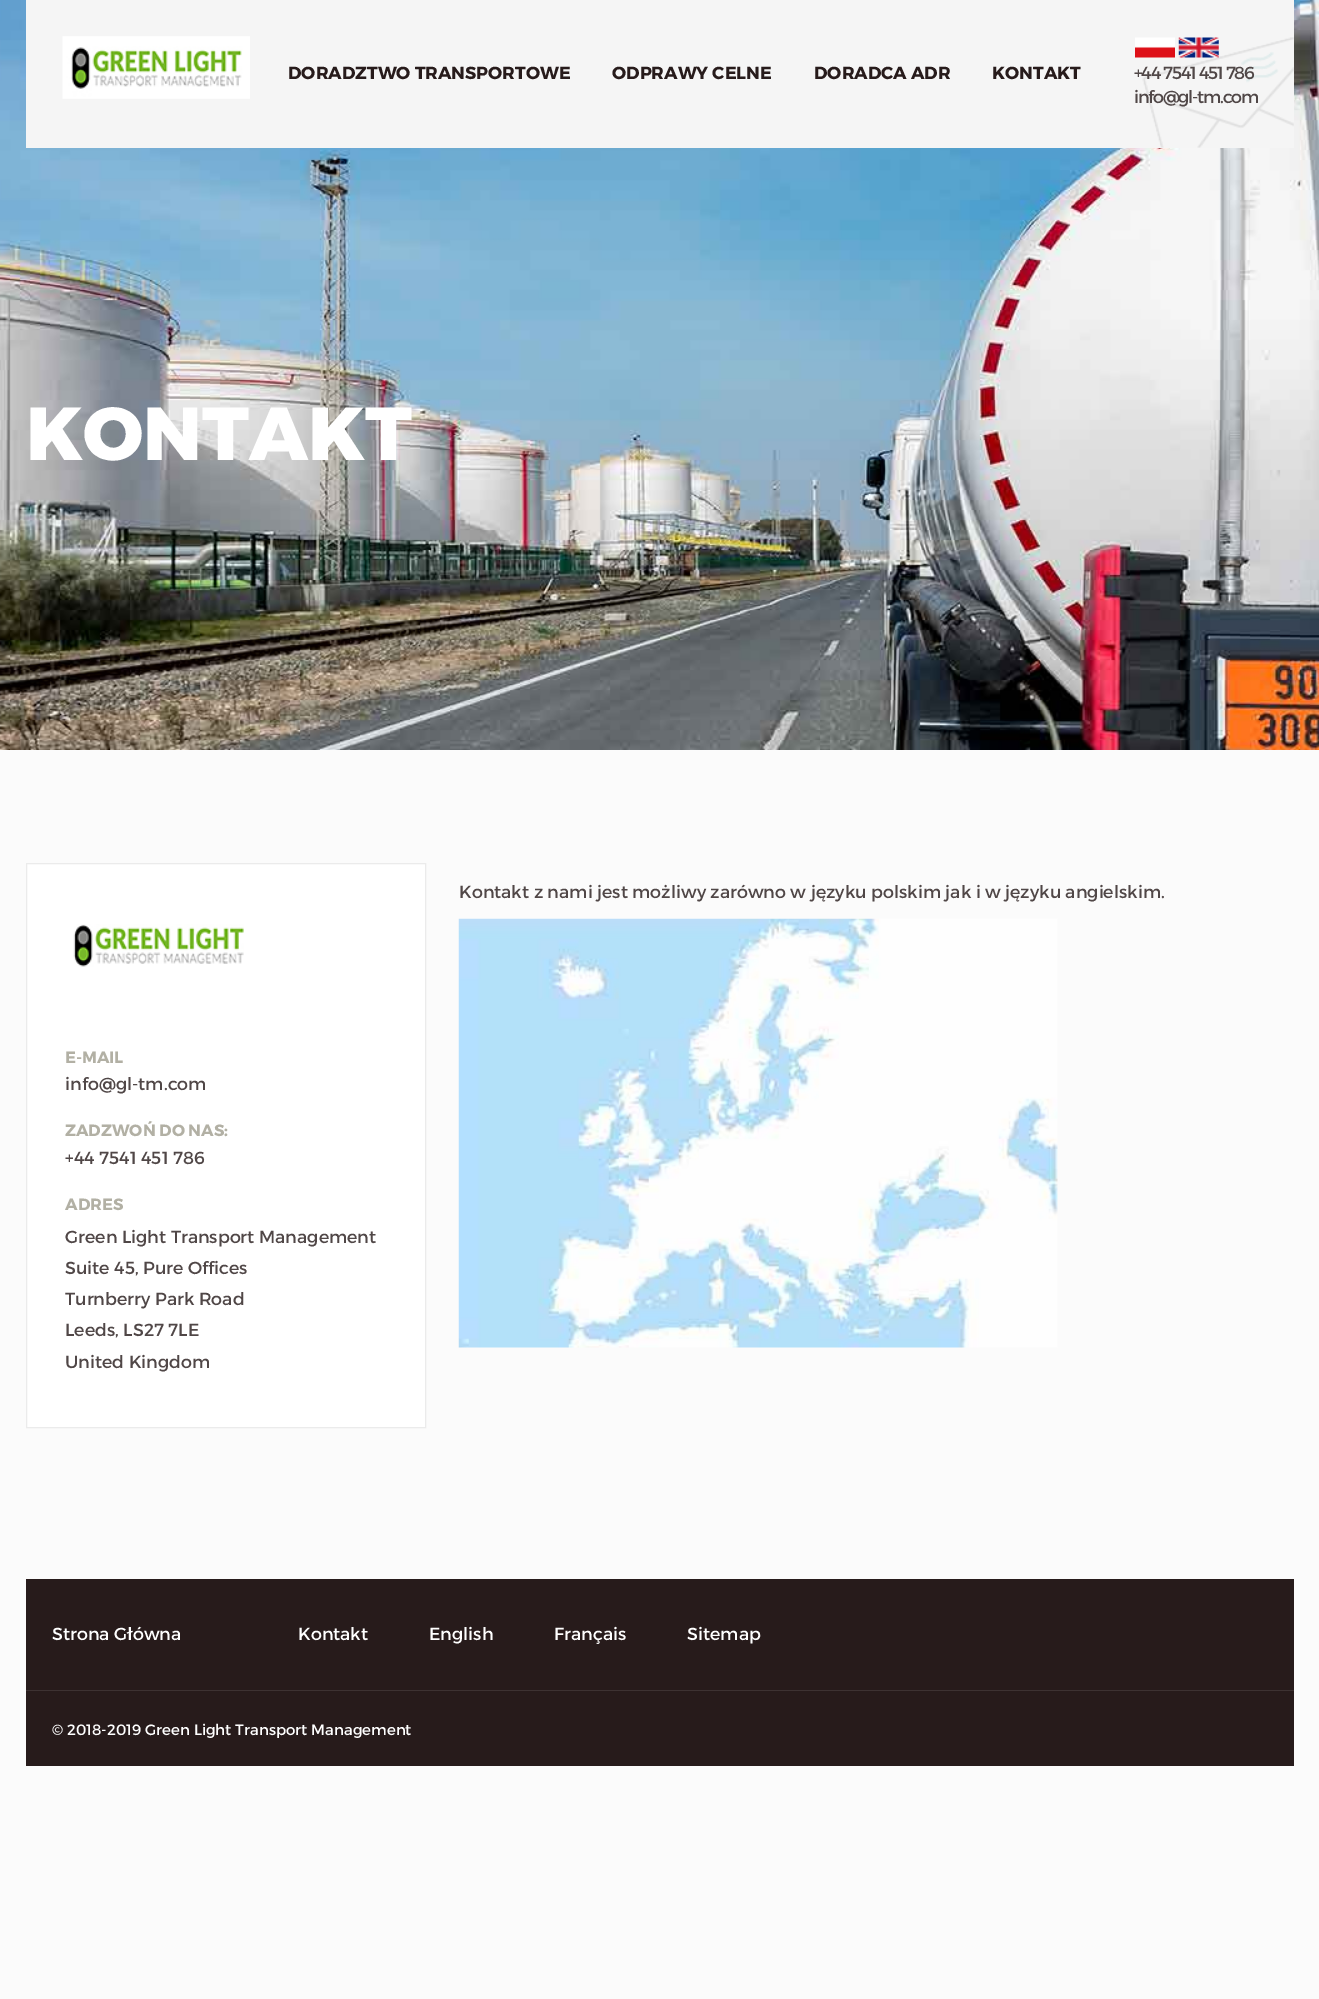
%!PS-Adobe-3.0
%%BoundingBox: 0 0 1319 1999
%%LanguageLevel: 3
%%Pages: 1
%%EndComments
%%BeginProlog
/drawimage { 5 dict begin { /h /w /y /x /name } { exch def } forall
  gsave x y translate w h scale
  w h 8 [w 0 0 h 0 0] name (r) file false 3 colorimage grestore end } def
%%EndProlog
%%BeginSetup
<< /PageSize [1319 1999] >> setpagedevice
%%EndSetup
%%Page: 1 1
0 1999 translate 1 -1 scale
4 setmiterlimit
0.984 setgray
0 0 1319 1999 rectfill
(images/1.raw) 0 0 1319 750 drawimage
0.961 setgray
26 0 1268 148 rectfill
(images/2.raw) 62 36 188 63 drawimage
(images/3.raw) 1142 37 152 111 drawimage
(images/4.raw) 1135 37 40 21 drawimage
(images/5.raw) 1178 37 41 21 drawimage
(images/6.raw) 458 918 600 430 drawimage
1 setgray
newpath 26.5 863.5 moveto 425.5 863.5 lineto 425.5 1427.5 lineto 26.5 1427.5 lineto closepath gsave fill grestore
0.922 setgray
stroke
(images/7.raw) 73 924 171 43 drawimage
0.153 0.106 0.106 setrgbcolor
26 1579 1268 187 rectfill
0.239 0.196 0.196 setrgbcolor
26 1690 1268 1 rectfill
/Montserrat-Bold [17.5 0 0 -17.5 0 0] selectfont
0.153 0.106 0.106 setrgbcolor
288 79 moveto (DORADZTWO TRANSPORTOWE) show
612 79 moveto (ODPRAWY CELNE) show
814 79 moveto (DORADCA ADR) show
992 79 moveto (KONTAKT) show
/Montserrat-Regular [17.5 0 0 -17.5 0 0] selectfont
0.314 0.278 0.278 setrgbcolor
1134 79 moveto -1.25 0 (+44 7541 451 786) ashow
1134 103 moveto -1.25 0 (info@gl-tm.com) ashow
/Montserrat-ExtraBold [75 0 0 -75 0 0] selectfont
1 setgray
26 460 moveto (KONTAKT) show
/Montserrat-Regular [17.5 0 0 -17.5 0 0] selectfont
0.314 0.278 0.278 setrgbcolor
459 898 moveto (Kontakt z nami jest możliwy zarówno w języku polskim jak i w języku angielskim.) show
/Montserrat-Bold [16.25 0 0 -16.25 0 0] selectfont
0.698 0.69 0.643 setrgbcolor
65 1063 moveto (E-MAIL) show
/Montserrat-Regular [17.5 0 0 -17.5 0 0] selectfont
0.314 0.278 0.278 setrgbcolor
65 1090 moveto (info@gl-tm.com) show
/Montserrat-Bold [16.25 0 0 -16.25 0 0] selectfont
0.698 0.69 0.643 setrgbcolor
65 1136 moveto (ZADZWOŃ DO NAS:) show
/Montserrat-Regular [17.5 0 0 -17.5 0 0] selectfont
0.314 0.278 0.278 setrgbcolor
65 1164 moveto (+44 7541 451 786) show
/Montserrat-Bold [16.25 0 0 -16.25 0 0] selectfont
0.698 0.69 0.643 setrgbcolor
65 1210 moveto (ADRES) show
/Montserrat-Regular [17.5 0 0 -17.5 0 0] selectfont
0.314 0.278 0.278 setrgbcolor
65 1243 moveto (Green Light Transport Management) show
65 1274 moveto (Suite 45, Pure Offices) show
65 1305 moveto (Turnberry Park Road) show
65 1336 moveto (Leeds, LS27 7LE) show
65 1368 moveto (United Kingdom) show
1 setgray
52 1640 moveto (Strona Główna) show
298 1640 moveto (Kontakt) show
429 1640 moveto (English) show
554 1640 moveto (Français) show
687 1640 moveto (Sitemap) show
/Montserrat-Regular [15 0 0 -15 0 0] selectfont
52 1735 moveto (© 2018-2019 Green Light Transport Management) show
showpage
%%EOF
